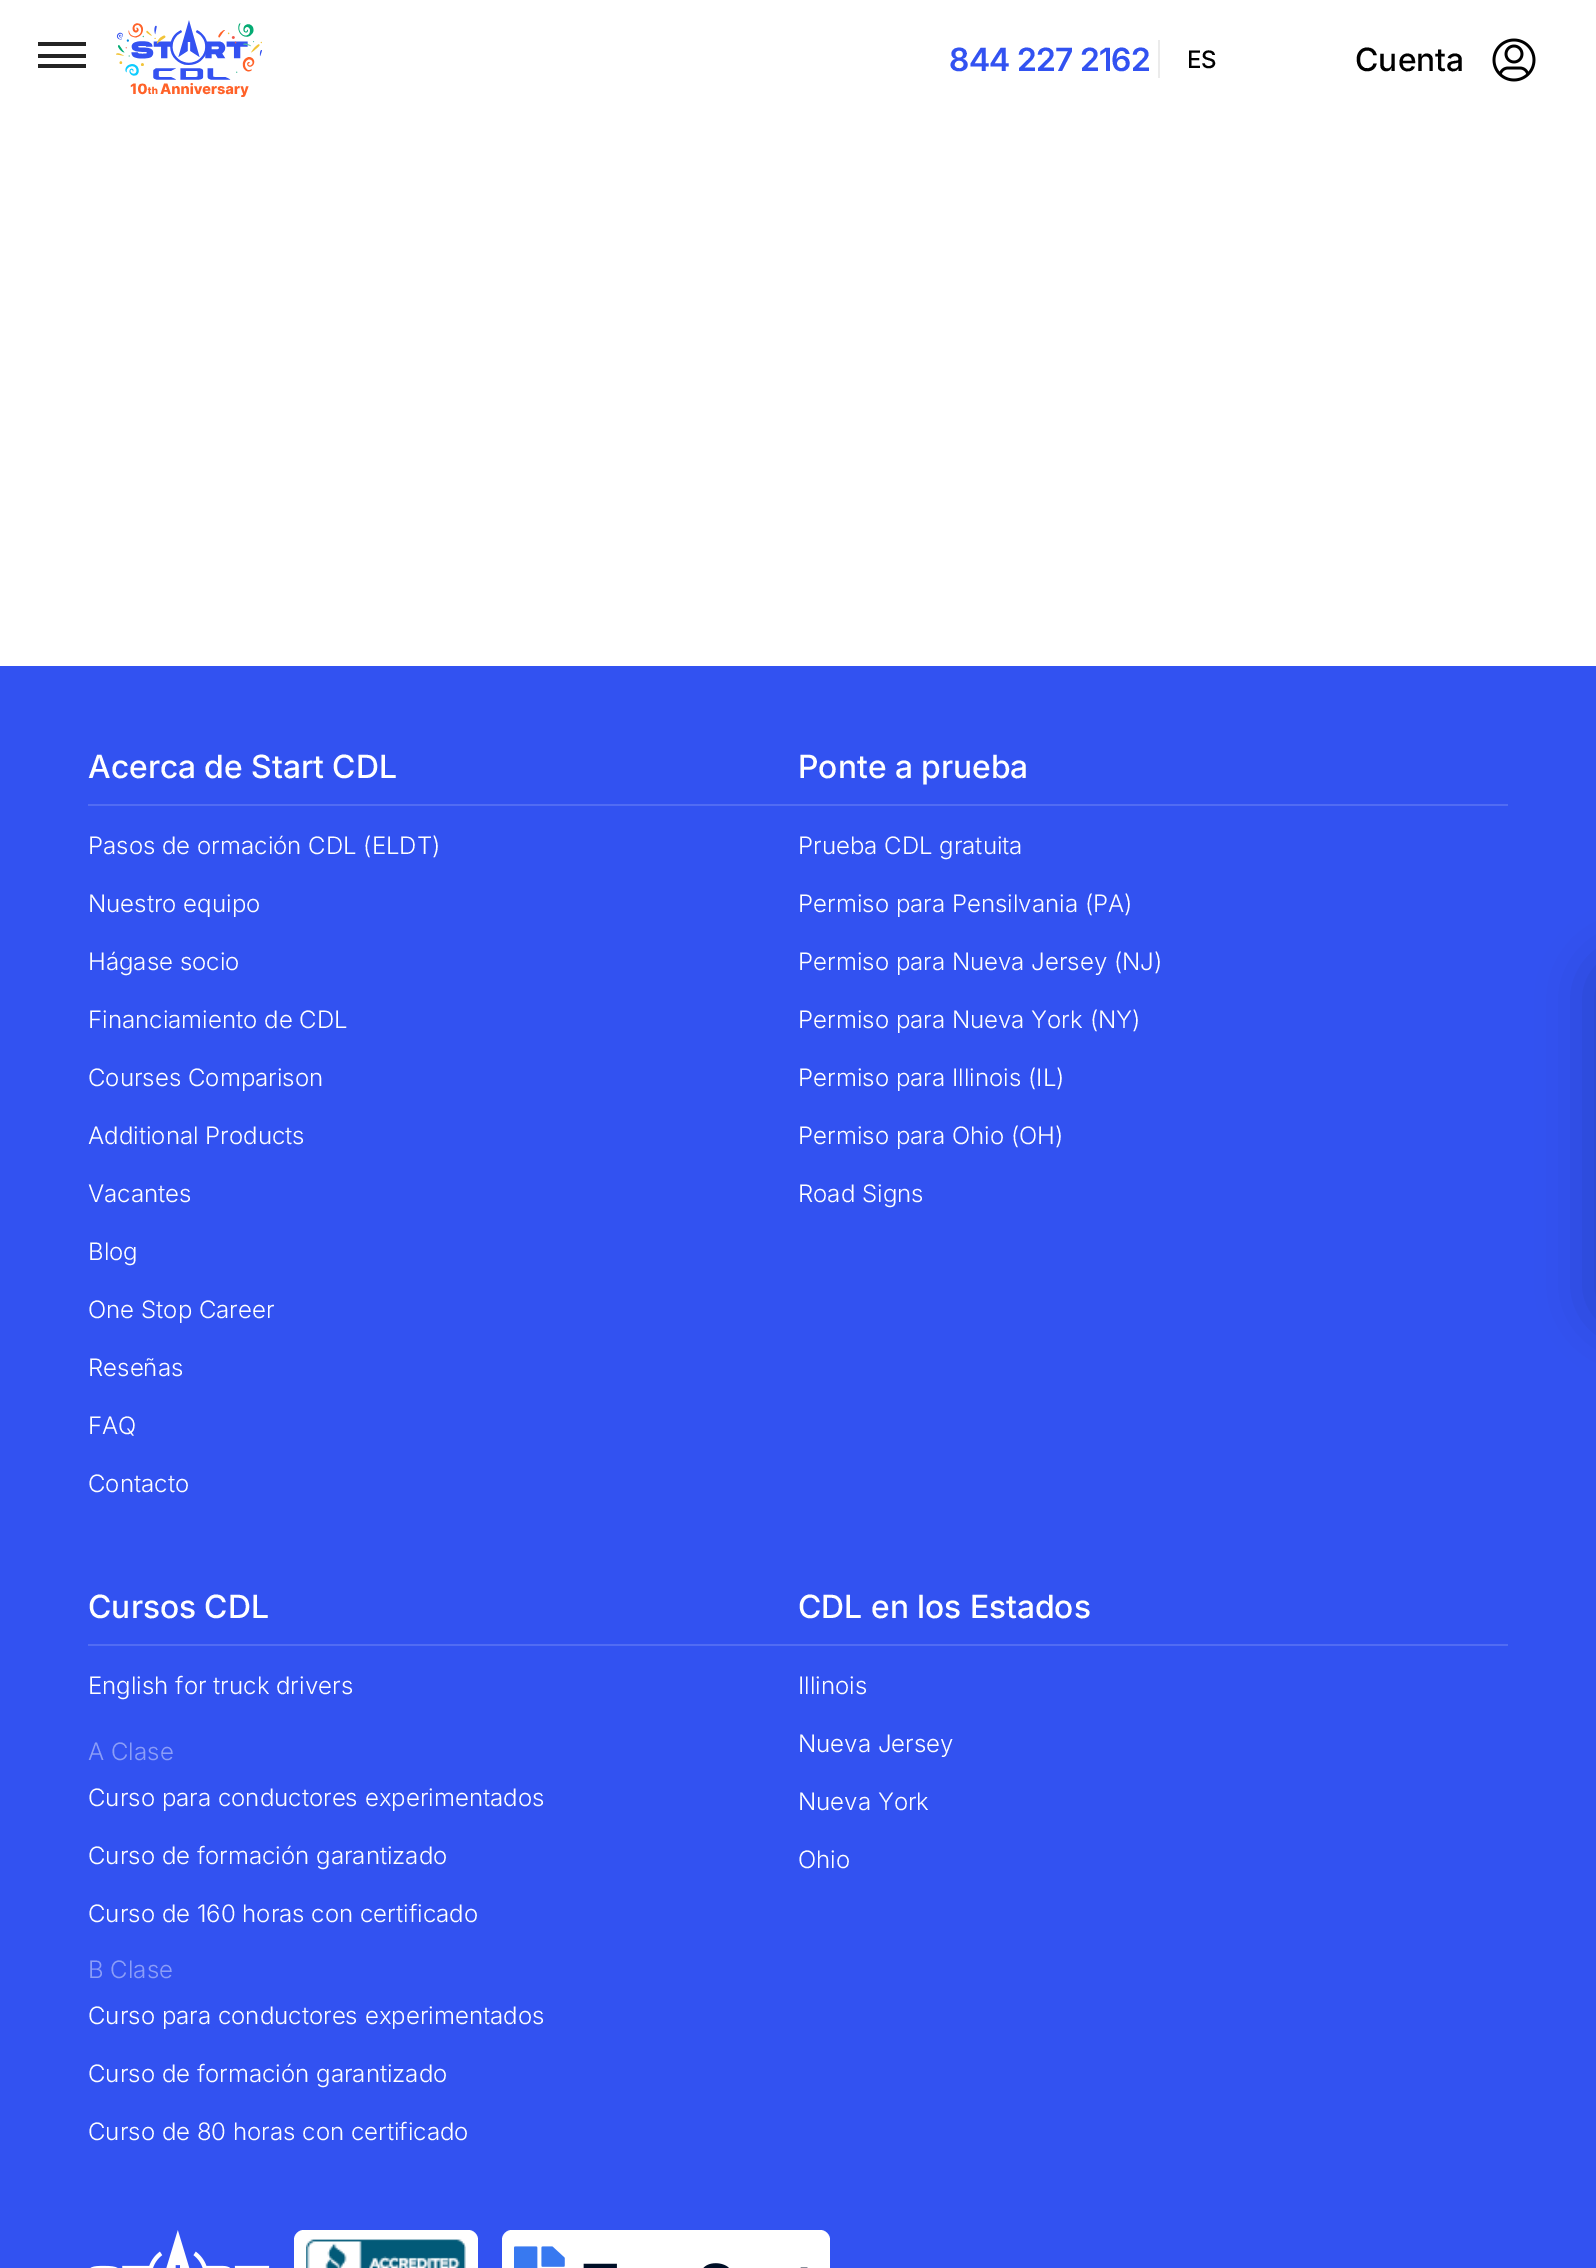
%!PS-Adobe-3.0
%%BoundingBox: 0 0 1596 2268
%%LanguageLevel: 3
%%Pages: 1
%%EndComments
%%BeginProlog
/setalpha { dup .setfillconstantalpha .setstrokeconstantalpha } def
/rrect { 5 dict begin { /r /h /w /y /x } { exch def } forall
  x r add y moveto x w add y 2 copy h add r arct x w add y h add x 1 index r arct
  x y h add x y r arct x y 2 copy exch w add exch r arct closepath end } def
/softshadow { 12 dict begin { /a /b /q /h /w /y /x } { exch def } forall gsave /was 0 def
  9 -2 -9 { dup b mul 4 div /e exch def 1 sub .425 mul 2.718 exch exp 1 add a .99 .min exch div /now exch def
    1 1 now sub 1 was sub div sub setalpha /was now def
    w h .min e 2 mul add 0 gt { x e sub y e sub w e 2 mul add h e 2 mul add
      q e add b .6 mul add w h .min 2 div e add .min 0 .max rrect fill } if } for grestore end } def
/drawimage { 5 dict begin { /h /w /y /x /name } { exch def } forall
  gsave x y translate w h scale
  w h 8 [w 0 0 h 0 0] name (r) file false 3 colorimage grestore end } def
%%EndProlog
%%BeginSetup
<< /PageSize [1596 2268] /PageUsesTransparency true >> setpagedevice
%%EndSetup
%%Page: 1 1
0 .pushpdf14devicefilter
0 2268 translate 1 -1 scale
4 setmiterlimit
1 setgray
0 0 1596 2268 rectfill
0.141 setgray
38 42 48 4 rectfill
38 54 48 4 rectfill
38 64 48 4 rectfill
(images/1.raw) 116 20 146 77 drawimage
0.922 setgray
1158 40 2 38 rectfill
(images/2.raw) 1492 38 44 44 drawimage
0.196 0.322 0.945 setrgbcolor
0 666 1596 1602 rectfill
0.318 0.424 0.953 setrgbcolor
88 804 1420 2 rectfill
88 1644 1420 2 rectfill
(images/3.raw) 90 2230 180 38 drawimage
1 setgray
294 2230 184 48 10 rrect fill
(images/4.raw) 306 2239 160 29 drawimage
502 2230 328 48 10 rrect fill
(images/5.raw) 514 2246 294 22 drawimage
0 setgray
1588 954 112 376 32 24 0.15 softshadow
/Inter-SemiBold [32 0 0 -32 0 0] selectfont
0.196 0.322 0.945 setrgbcolor
949 71 moveto -0.75 0 (844 227 2162) ashow
/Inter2-Medium [24 0 0 -24 0 0] selectfont
0 setgray
1187 68 moveto (ES) show
/Inter-Medium [32 0 0 -32 0 0] selectfont
1355 71 moveto (Cuenta) show
1 setgray
88 778 moveto (Acerca de Start CDL) show
/Inter-Light [24 0 0 -24 0 0] selectfont
88 854 moveto (Pasos de ormación CDL \(ELDT\)) show
88 912 moveto (Nuestro equipo) show
88 970 moveto (Hágase socio) show
88 1028 moveto (Financiamiento de CDL) show
88 1086 moveto (Courses Comparison) show
88 1144 moveto (Additional Products) show
88 1202 moveto (Vacantes) show
88 1260 moveto (Blog) show
88 1318 moveto (One Stop Career) show
88 1376 moveto (Reseñas) show
88 1434 moveto (FAQ) show
88 1492 moveto (Contacto) show
/Inter-Medium [32 0 0 -32 0 0] selectfont
798 778 moveto (Ponte a prueba) show
/Inter-Light [24 0 0 -24 0 0] selectfont
798 854 moveto (Prueba CDL gratuita) show
798 912 moveto (Permiso para Pensilvania \(PA\)) show
798 970 moveto (Permiso para Nueva Jersey \(NJ\)) show
798 1028 moveto (Permiso para Nueva York \(NY\)) show
798 1086 moveto (Permiso para Illinois \(IL\)) show
798 1144 moveto (Permiso para Ohio \(OH\)) show
798 1202 moveto (Road Signs) show
/Inter-Medium [32 0 0 -32 0 0] selectfont
88 1618 moveto (Cursos CDL) show
/Inter-Light [24 0 0 -24 0 0] selectfont
88 1694 moveto (English for truck drivers) show
0.549 0.62 0.969 setrgbcolor
88 1760 moveto (A Clase) show
1 setgray
88 1806 moveto (Curso para conductores experimentados) show
88 1864 moveto (Curso de formación garantizado) show
88 1922 moveto (Curso de 160 horas con certificado) show
0.549 0.62 0.969 setrgbcolor
88 1978 moveto (B Clase) show
1 setgray
88 2024 moveto (Curso para conductores experimentados) show
88 2082 moveto (Curso de formación garantizado) show
88 2140 moveto (Curso de 80 horas con certificado) show
/Inter-Medium [32 0 0 -32 0 0] selectfont
798 1618 moveto (CDL en los Estados) show
/Inter-Light [24 0 0 -24 0 0] selectfont
798 1694 moveto (Illinois) show
798 1752 moveto (Nueva Jersey) show
798 1810 moveto (Nueva York) show
798 1868 moveto (Ohio) show
.poppdf14devicefilter showpage
%%EOF
